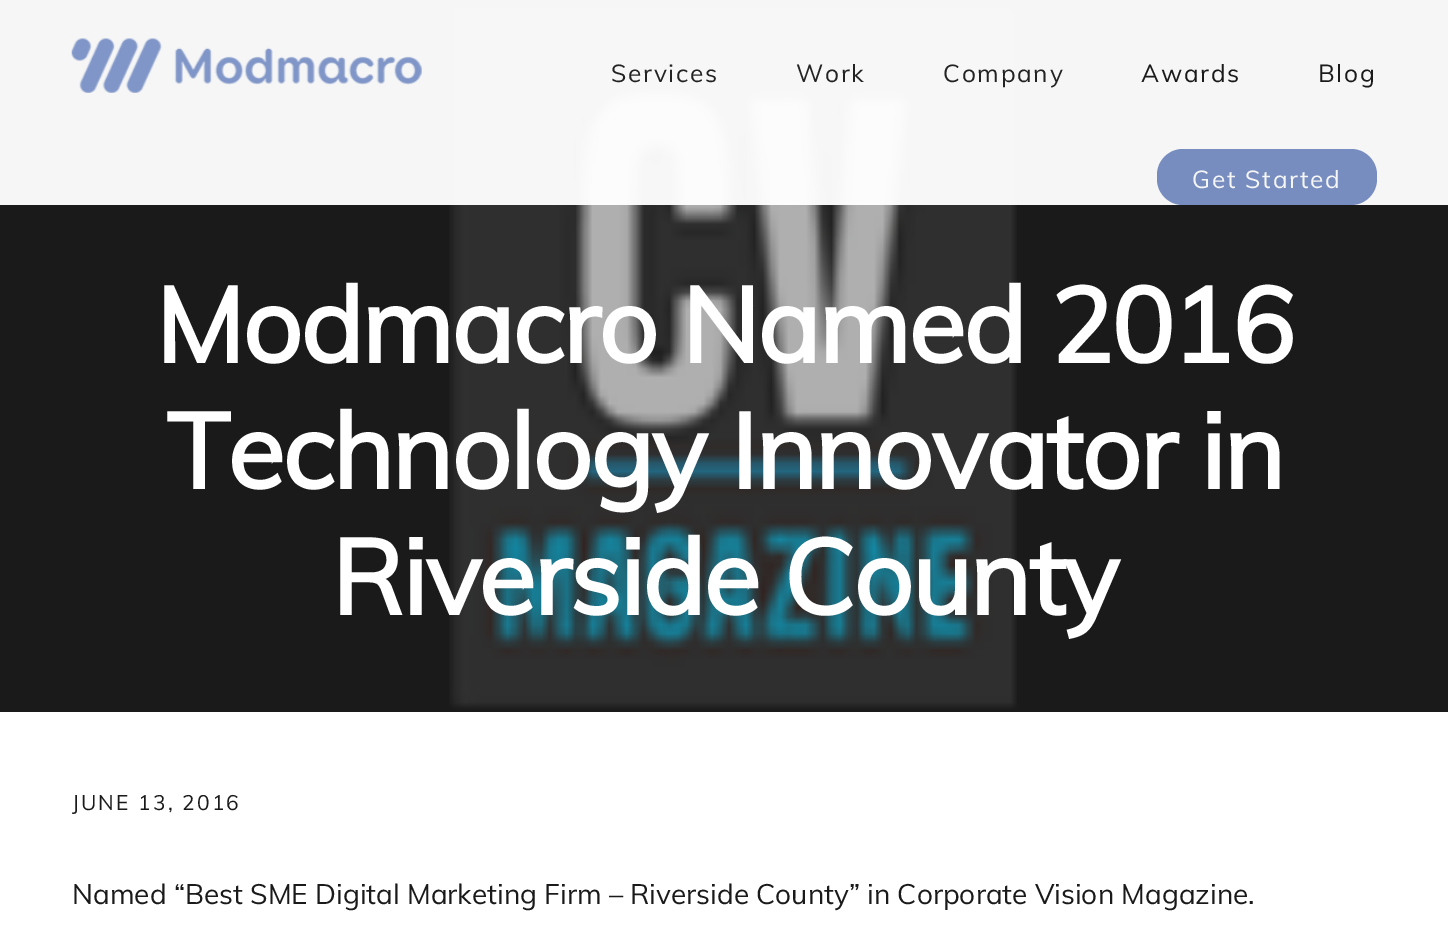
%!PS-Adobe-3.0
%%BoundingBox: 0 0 1448 948
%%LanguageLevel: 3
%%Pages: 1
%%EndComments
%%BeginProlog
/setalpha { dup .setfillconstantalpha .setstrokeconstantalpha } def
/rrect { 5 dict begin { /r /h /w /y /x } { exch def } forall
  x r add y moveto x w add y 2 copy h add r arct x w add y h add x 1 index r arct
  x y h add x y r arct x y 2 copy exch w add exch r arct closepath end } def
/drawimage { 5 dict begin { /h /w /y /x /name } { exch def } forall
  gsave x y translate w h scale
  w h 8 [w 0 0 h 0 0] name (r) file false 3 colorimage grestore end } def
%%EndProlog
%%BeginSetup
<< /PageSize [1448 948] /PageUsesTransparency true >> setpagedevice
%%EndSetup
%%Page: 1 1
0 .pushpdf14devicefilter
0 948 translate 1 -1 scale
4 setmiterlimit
1 setgray
0 0 1448 948 rectfill
0.102 setgray
0 0 1448 712 rectfill
(images/2.raw) 449 3 568 707 drawimage
0.96 setalpha
1 setgray
0 0 1448 205 rectfill
1 setalpha
(images/1.raw) 71 38 351 55 drawimage
0.467 0.553 0.749 setrgbcolor
1157 149 220 56 26 rrect fill
/Muli-Regular [24.5 0 0 -24.5 0 0] selectfont
0.137 setgray
611 82 moveto 1.75 0 (Services) ashow
796 82 moveto 1.75 0 (Work) ashow
943 82 moveto 1.75 0 (Company) ashow
0.102 setgray
1141 82 moveto 1.75 0 (Awards) ashow
1318 82 moveto 1.75 0 (Blog) ashow
0.965 setgray
1192 188 moveto 1.75 0 (Get Started) ashow
/Muli-Bold [105 0 0 -105 0 0] selectfont
1 setgray
155 363 moveto -2.1 0 (Modmacro Named 2016) ashow
166 489 moveto -2.1 0 (Technology Innovator in) ashow
331 615 moveto -2.1 0 (Riverside County) ashow
/Muli-Regular [21 0 0 -21 0 0] selectfont
0.102 setgray
72 810 moveto 2.1 0 (JUNE 13, 2016) ashow
/Muli-Regular [28 0 0 -28 0 0] selectfont
72 904 moveto (Named “Best SME Digital Marketing Firm – Riverside County” in Corporate Vision Magazine.) show
.poppdf14devicefilter showpage
%%EOF
